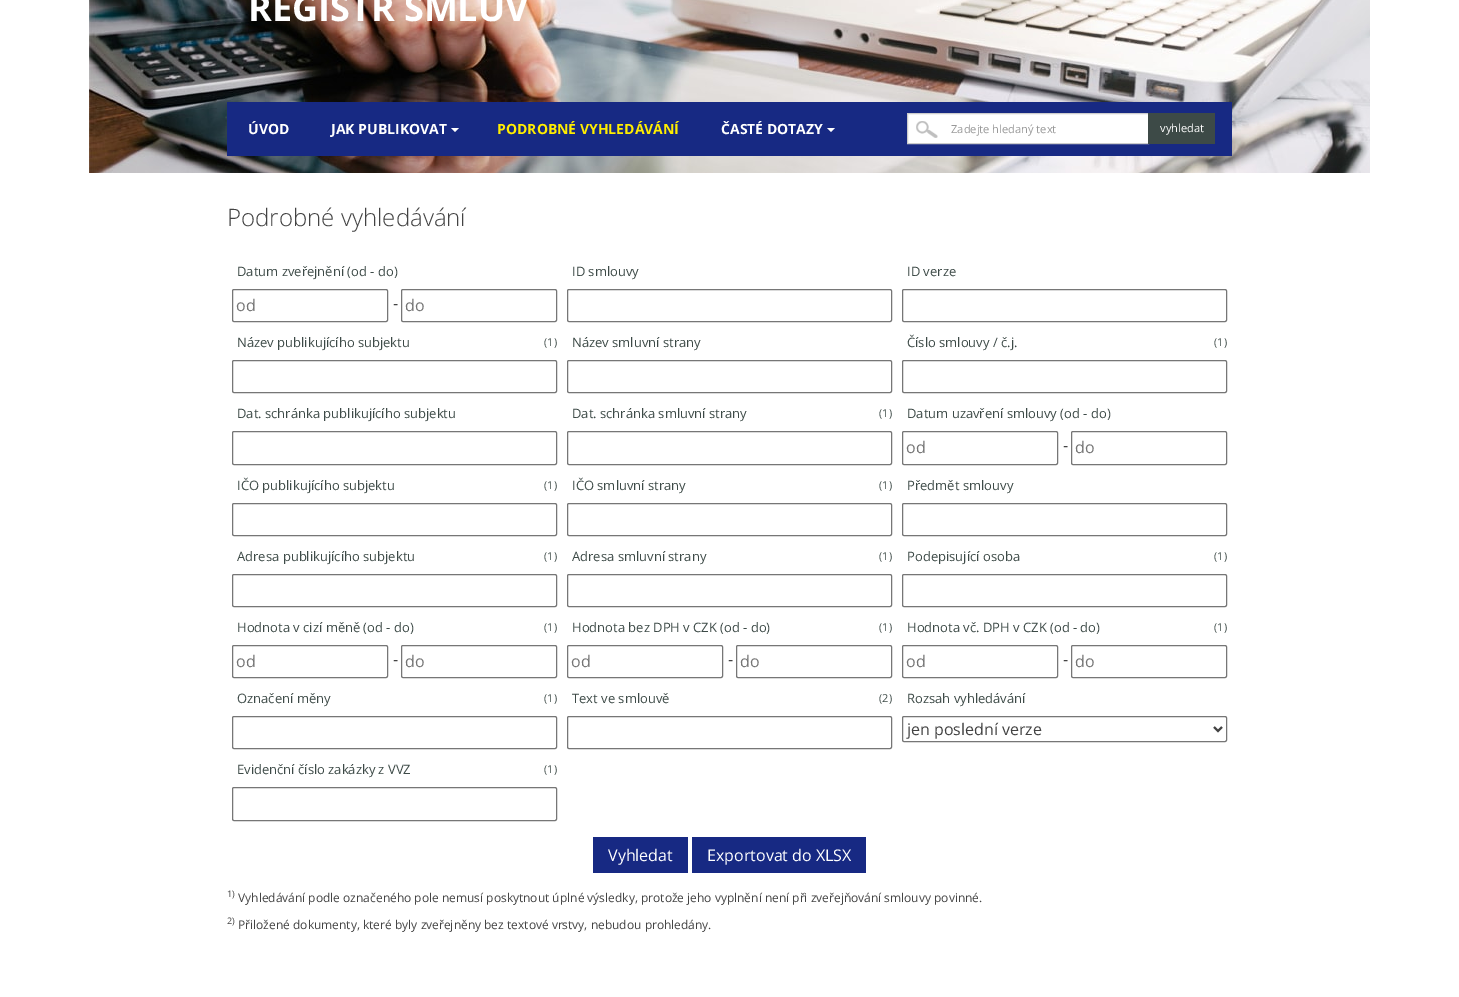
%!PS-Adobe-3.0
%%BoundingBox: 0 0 1459 997
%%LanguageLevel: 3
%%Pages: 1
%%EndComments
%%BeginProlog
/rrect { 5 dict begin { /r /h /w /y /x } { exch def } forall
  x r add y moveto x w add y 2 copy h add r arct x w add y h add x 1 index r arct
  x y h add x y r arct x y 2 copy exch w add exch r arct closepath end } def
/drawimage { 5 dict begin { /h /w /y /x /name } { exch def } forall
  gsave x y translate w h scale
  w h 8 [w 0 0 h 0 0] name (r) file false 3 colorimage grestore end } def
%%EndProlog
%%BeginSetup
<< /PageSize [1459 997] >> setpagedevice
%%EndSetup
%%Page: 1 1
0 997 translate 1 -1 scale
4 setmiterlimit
1 setgray
0 0 1459 997 rectfill
(images/1.raw) 89 0 1281 173 drawimage
0.09 0.161 0.514 setrgbcolor
227 102 1005 54 rectfill
1 setgray
newpath 451 128 moveto 459 128 lineto 455 132 lineto closepath fill
newpath 827 128 moveto 835 128 lineto 831 132 lineto closepath fill
908 114 240 29 rectfill
(images/2.raw) 916 121 22 17 drawimage
0.8 setgray
907.5 113.5 241 30 rectstroke
0.239 0.29 0.278 setrgbcolor
1148 113 67 31 rectfill
0.463 setgray
232.5 289.5 155 32 1.5 rrect stroke
401.5 289.5 155 32 1.5 rrect stroke
232.5 360.5 324 32 1.5 rrect stroke
232.5 431.5 324 33 1.5 rrect stroke
232.5 503.5 324 32 1.5 rrect stroke
232.5 574.5 324 32 1.5 rrect stroke
232.5 645.5 155 32 1.5 rrect stroke
401.5 645.5 155 32 1.5 rrect stroke
232.5 716.5 324 32 1.5 rrect stroke
232.5 787.5 324 33 1.5 rrect stroke
567.5 289.5 324 32 1.5 rrect stroke
567.5 360.5 324 32 1.5 rrect stroke
567.5 431.5 324 33 1.5 rrect stroke
567.5 503.5 324 32 1.5 rrect stroke
567.5 574.5 324 32 1.5 rrect stroke
567.5 645.5 155 32 1.5 rrect stroke
736.5 645.5 155 32 1.5 rrect stroke
567.5 716.5 324 32 1.5 rrect stroke
902.5 289.5 324 32 1.5 rrect stroke
902.5 360.5 324 32 1.5 rrect stroke
902.5 431.5 155 33 1.5 rrect stroke
1071.5 431.5 155 33 1.5 rrect stroke
902.5 503.5 324 32 1.5 rrect stroke
902.5 574.5 324 32 1.5 rrect stroke
902.5 645.5 155 32 1.5 rrect stroke
1071.5 645.5 155 32 1.5 rrect stroke
902.5 716.5 324 25 1.5 rrect stroke
0.263 setgray
2 setlinewidth
newpath 1214 727 moveto 1218 731 lineto 1222 727 lineto stroke
0.09 0.161 0.514 setrgbcolor
593 837 95 36 rectfill
692 837 174 36 rectfill
/OpenSans-Bold [36 0 0 -36 0 0] selectfont
1 setgray
248 21 moveto (REGISTR SMLUV) show
/OpenSans-Bold [14 0 0 -14 0 0] selectfont
248 134 moveto (ÚVOD) show
331 134 moveto (JAK PUBLIKOVAT) show
1 0.929 0 setrgbcolor
497 134 moveto (PODROBNÉ VYHLEDÁVÁNÍ) show
1 setgray
721 134 moveto (ČASTÉ DOTAZY) show
/OpenSans-Regular [11.1 0 0 -11.1 0 0] selectfont
0.6 setgray
951 133 moveto (Zadejte hledaný text) show
1 setgray
1160 132 moveto (vyhledat) show
/OpenSans-Light [24 0 0 -24 0 0] selectfont
0.263 setgray
227 226 moveto (Podrobné vyhledávání) show
/OpenSans-Regular [13 0 0 -13 0 0] selectfont
0.239 0.29 0.278 setrgbcolor
237 276 moveto (Datum zveřejnění \(od - do\)) show
/OpenSans-Regular [16 0 0 -16 0 0] selectfont
0.459 setgray
236 311 moveto (od) show
0.263 setgray
393 309 moveto (-) show
0.459 setgray
405 311 moveto (do) show
/OpenSans-Regular [13 0 0 -13 0 0] selectfont
0.239 0.29 0.278 setrgbcolor
237 347 moveto (Název publikujícího subjektu) show
/OpenSans-Regular [11 0 0 -11 0 0] selectfont
544 346 moveto (\(1\)) show
/OpenSans-Regular [13 0 0 -13 0 0] selectfont
237 418 moveto (Dat. schránka publikujícího subjektu) show
237 490 moveto (IČO publikujícího subjektu) show
/OpenSans-Regular [11 0 0 -11 0 0] selectfont
544 489 moveto (\(1\)) show
/OpenSans-Regular [13 0 0 -13 0 0] selectfont
237 561 moveto (Adresa publikujícího subjektu) show
/OpenSans-Regular [11 0 0 -11 0 0] selectfont
544 560 moveto (\(1\)) show
/OpenSans-Regular [13 0 0 -13 0 0] selectfont
237 632 moveto (Hodnota v cizí měně \(od - do\)) show
/OpenSans-Regular [11 0 0 -11 0 0] selectfont
544 631 moveto (\(1\)) show
/OpenSans-Regular [16 0 0 -16 0 0] selectfont
0.459 setgray
236 667 moveto (od) show
0.263 setgray
393 665 moveto (-) show
0.459 setgray
405 667 moveto (do) show
/OpenSans-Regular [13 0 0 -13 0 0] selectfont
0.239 0.29 0.278 setrgbcolor
237 703 moveto (Označení měny) show
/OpenSans-Regular [11 0 0 -11 0 0] selectfont
544 702 moveto (\(1\)) show
/OpenSans-Regular [13 0 0 -13 0 0] selectfont
237 774 moveto (Evidenční číslo zakázky z VVZ) show
/OpenSans-Regular [11 0 0 -11 0 0] selectfont
544 773 moveto (\(1\)) show
/OpenSans-Regular [13 0 0 -13 0 0] selectfont
572 276 moveto (ID smlouvy) show
572 347 moveto (Název smluvní strany) show
572 418 moveto (Dat. schránka smluvní strany) show
/OpenSans-Regular [11 0 0 -11 0 0] selectfont
879 417 moveto (\(1\)) show
/OpenSans-Regular [13 0 0 -13 0 0] selectfont
572 490 moveto (IČO smluvní strany) show
/OpenSans-Regular [11 0 0 -11 0 0] selectfont
879 489 moveto (\(1\)) show
/OpenSans-Regular [13 0 0 -13 0 0] selectfont
572 561 moveto (Adresa smluvní strany) show
/OpenSans-Regular [11 0 0 -11 0 0] selectfont
879 560 moveto (\(1\)) show
/OpenSans-Regular [13 0 0 -13 0 0] selectfont
572 632 moveto (Hodnota bez DPH v CZK \(od - do\)) show
/OpenSans-Regular [11 0 0 -11 0 0] selectfont
879 631 moveto (\(1\)) show
/OpenSans-Regular [16 0 0 -16 0 0] selectfont
0.459 setgray
571 667 moveto (od) show
0.263 setgray
728 665 moveto (-) show
0.459 setgray
740 667 moveto (do) show
/OpenSans-Regular [13 0 0 -13 0 0] selectfont
0.239 0.29 0.278 setrgbcolor
572 703 moveto (Text ve smlouvě) show
/OpenSans-Regular [11 0 0 -11 0 0] selectfont
879 702 moveto (\(2\)) show
/OpenSans-Regular [13 0 0 -13 0 0] selectfont
907 276 moveto (ID verze) show
907 347 moveto (Číslo smlouvy / č.j.) show
/OpenSans-Regular [11 0 0 -11 0 0] selectfont
1214 346 moveto (\(1\)) show
/OpenSans-Regular [13 0 0 -13 0 0] selectfont
907 418 moveto (Datum uzavření smlouvy \(od - do\)) show
/OpenSans-Regular [16 0 0 -16 0 0] selectfont
0.459 setgray
906 453 moveto (od) show
0.263 setgray
1063 451 moveto (-) show
0.459 setgray
1075 453 moveto (do) show
/OpenSans-Regular [13 0 0 -13 0 0] selectfont
0.239 0.29 0.278 setrgbcolor
907 490 moveto (Předmět smlouvy) show
907 561 moveto (Podepisující osoba) show
/OpenSans-Regular [11 0 0 -11 0 0] selectfont
1214 560 moveto (\(1\)) show
/OpenSans-Regular [13 0 0 -13 0 0] selectfont
907 632 moveto (Hodnota vč. DPH v CZK \(od - do\)) show
/OpenSans-Regular [11 0 0 -11 0 0] selectfont
1214 631 moveto (\(1\)) show
/OpenSans-Regular [16 0 0 -16 0 0] selectfont
0.459 setgray
906 667 moveto (od) show
0.263 setgray
1063 665 moveto (-) show
0.459 setgray
1075 667 moveto (do) show
/OpenSans-Regular [13 0 0 -13 0 0] selectfont
0.239 0.29 0.278 setrgbcolor
907 703 moveto (Rozsah vyhledávání) show
/OpenSans-Regular [16 0 0 -16 0 0] selectfont
0.263 setgray
907 735 moveto (jen poslední verze) show
1 setgray
608 861 moveto (Vyhledat) show
707 861 moveto (Exportovat do XLSX) show
/OpenSans-Regular [9 0 0 -9 0 0] selectfont
0.263 setgray
227 897 moveto (1\)) show
/OpenSans-Regular [12 0 0 -12 0 0] selectfont
238 902 moveto (Vyhledávání podle označeného pole nemusí poskytnout úplné výsledky, protože jeho vyplnění není při zveřejňování smlouvy povinné.) show
/OpenSans-Regular [9 0 0 -9 0 0] selectfont
227 924 moveto (2\)) show
/OpenSans-Regular [12 0 0 -12 0 0] selectfont
238 929 moveto (Přiložené dokumenty, které byly zveřejněny bez textové vrstvy, nebudou prohledány.) show
showpage
%%EOF
